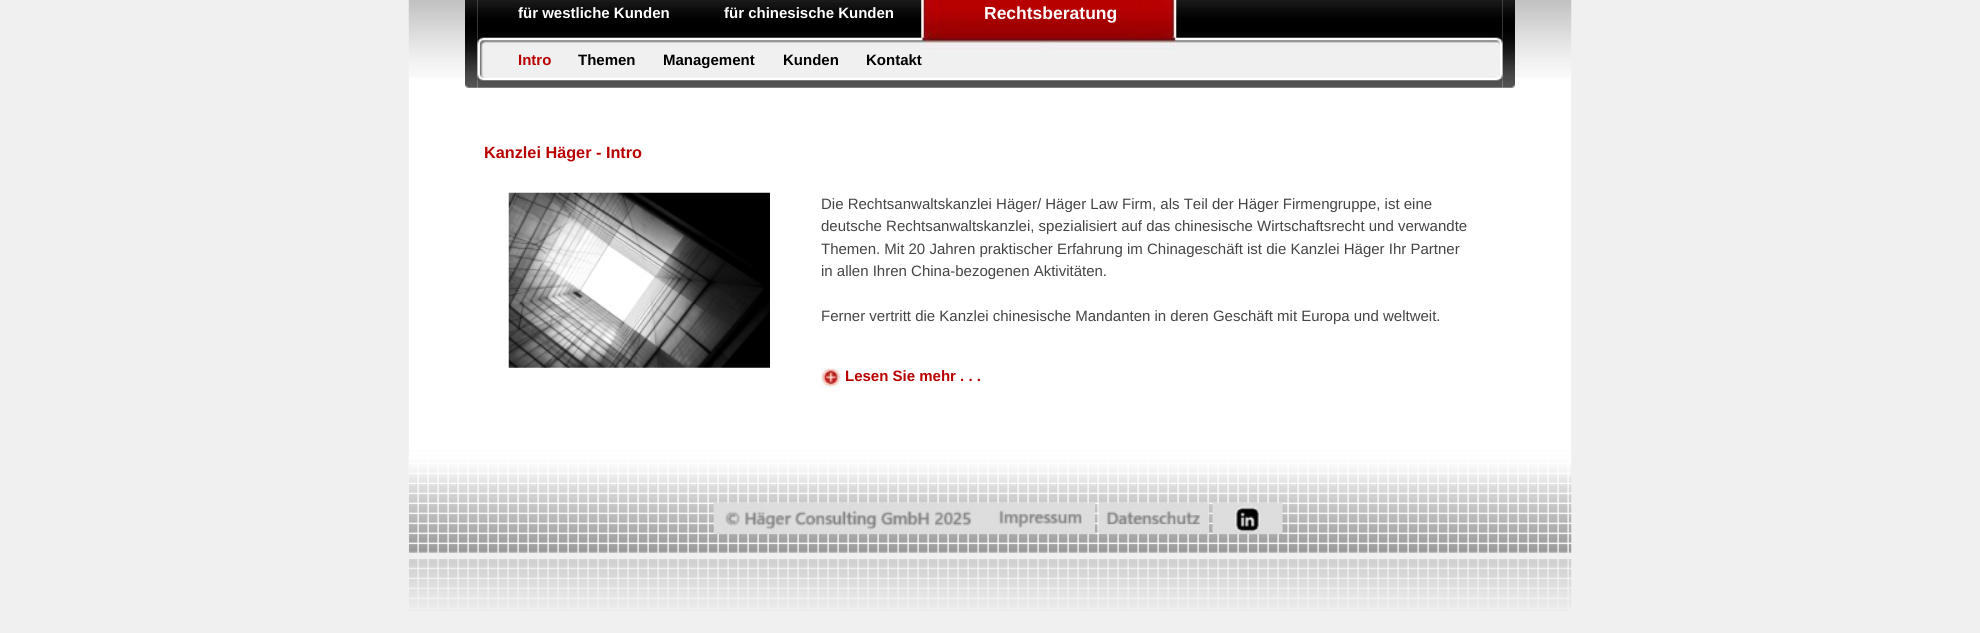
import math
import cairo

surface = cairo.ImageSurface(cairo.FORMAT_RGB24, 1980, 633)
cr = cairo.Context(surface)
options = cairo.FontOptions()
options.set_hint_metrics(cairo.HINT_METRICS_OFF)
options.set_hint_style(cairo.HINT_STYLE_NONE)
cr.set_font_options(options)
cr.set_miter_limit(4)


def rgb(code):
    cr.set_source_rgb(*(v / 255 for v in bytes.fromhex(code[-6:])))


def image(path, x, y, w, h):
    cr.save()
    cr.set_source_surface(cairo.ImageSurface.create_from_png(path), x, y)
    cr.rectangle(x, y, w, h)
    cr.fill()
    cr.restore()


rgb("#f0f0f0")
cr.paint()
rgb("#ffffff")
cr.rectangle(409, 78, 1162, 372)
cr.fill()
image("img/1.png", 408, 0, 1164, 78)
image("img/2.png", 465, 0, 13, 88)
image("img/3.png", 477, 0, 1026, 88)
image("img/6.png", 490, 37, 1000, 44)
image("img/4.png", 921, 0, 256, 50)
image("img/5.png", 477, 37, 13, 44)
image("img/8.png", 1502, 0, 13, 88)
image("img/7.png", 1490, 37, 13, 44)
image("img/9.png", 508, 192, 262, 176)
image("img/10.png", 821, 367, 20, 21)
image("img/11.png", 408, 450, 1164, 103)
image("img/12.png", 713, 502, 272, 32)
image("img/13.png", 985, 502, 110, 32)
image("img/14.png", 1098, 502, 111, 32)
image("img/15.png", 1212, 502, 71, 32)
image("img/16.png", 409, 559, 1163, 52)
cr.select_font_face("Liberation Sans", cairo.FONT_SLANT_NORMAL, cairo.FONT_WEIGHT_BOLD)
cr.set_font_size(15)
cr.move_to(518, 18)
cr.show_text("für westliche Kunden")
cr.move_to(724, 18)
cr.show_text("für chinesische Kunden")
cr.set_font_size(17.5)
cr.move_to(984, 19)
cr.show_text("Rechtsberatung")
cr.set_font_size(15)
rgb("#b90000")
cr.move_to(518, 65)
cr.show_text("Intro")
rgb("#000000")
for x, y, s in [
    (578, 65, "Themen"),
    (663, 65, "Management"),
    (783, 65, "Kunden"),
    (866, 65, "Kontakt"),
]:
    cr.move_to(x, y)
    cr.show_text(s)
cr.set_font_size(16.25)
rgb("#b90000")
cr.move_to(484, 158)
cr.show_text("Kanzlei Häger - Intro")
cr.select_font_face("Liberation Sans")
cr.set_font_size(15)
rgb("#444444")
for x, y, s in [
    (821, 209, "Die Rechtsanwaltskanzlei Häger/ Häger Law Firm, als Teil der Häger Firmengruppe, ist eine"),
    (821, 231, "deutsche Rechtsanwaltskanzlei, spezialisiert auf das chinesische Wirtschaftsrecht und verwandte"),
    (821, 254, "Themen. Mit 20 Jahren praktischer Erfahrung im Chinageschäft ist die Kanzlei Häger Ihr Partner"),
    (821, 276, "in allen Ihren China-bezogenen Aktivitäten."),
    (821, 321, "Ferner vertritt die Kanzlei chinesische Mandanten in deren Geschäft mit Europa und weltweit."),
]:
    cr.move_to(x, y)
    cr.show_text(s)
cr.select_font_face("Liberation Sans", cairo.FONT_SLANT_NORMAL, cairo.FONT_WEIGHT_BOLD)
rgb("#b90000")
cr.move_to(845, 381)
cr.show_text("Lesen Sie mehr . . .")
surface.write_to_png("page.png")
